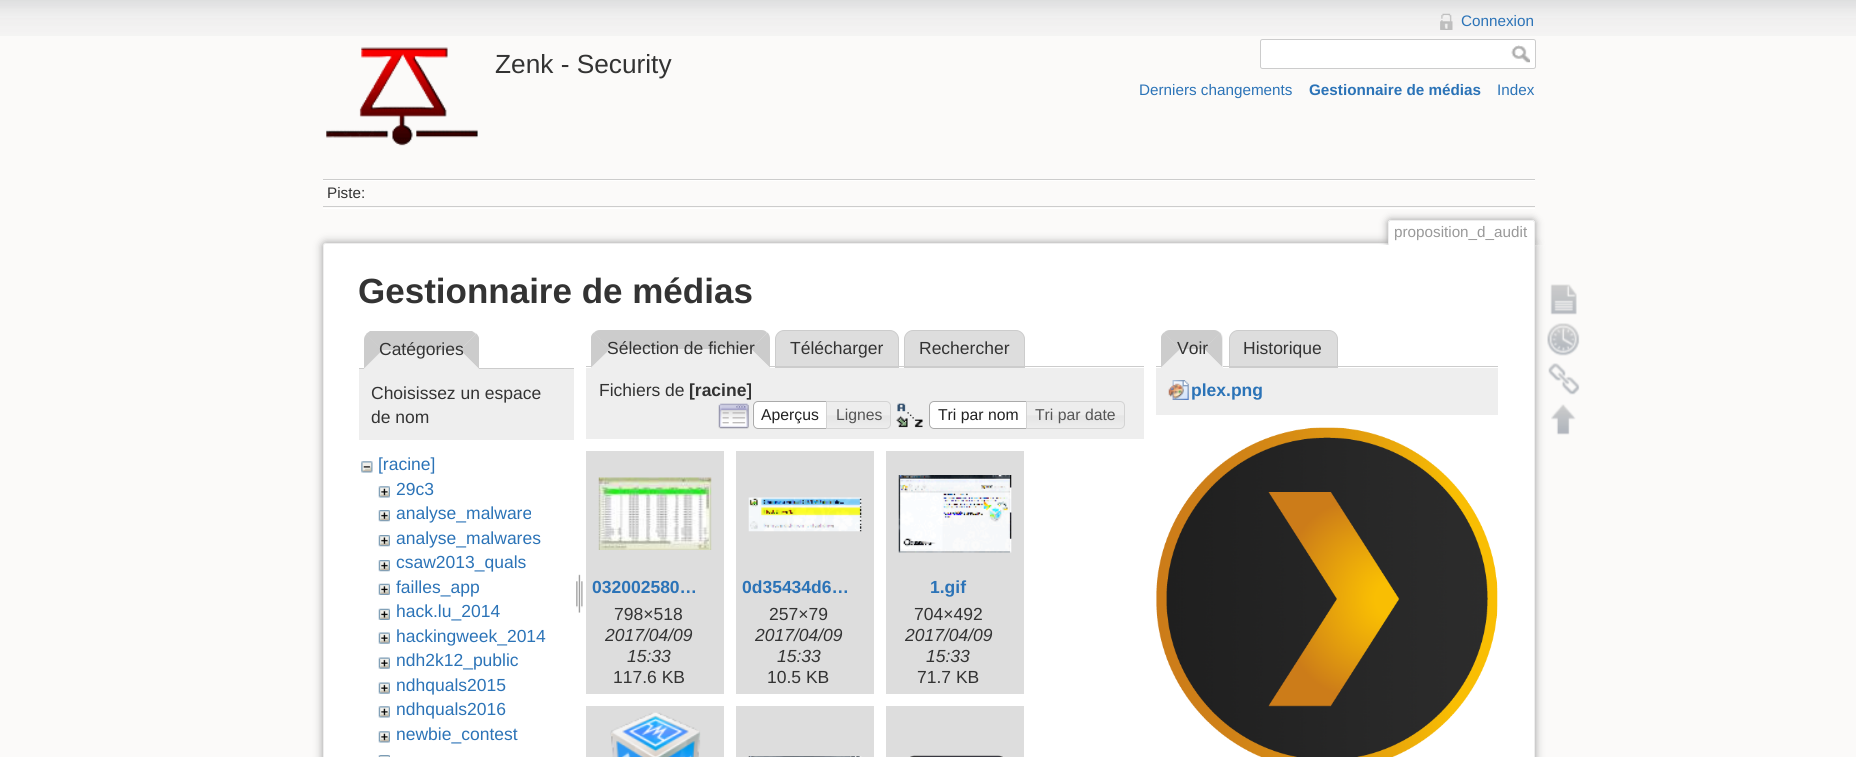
import math
import cairo

surface = cairo.ImageSurface(cairo.FORMAT_RGB24, 1856, 757)
cr = cairo.Context(surface)
options = cairo.FontOptions()
options.set_hint_metrics(cairo.HINT_METRICS_OFF)
options.set_hint_style(cairo.HINT_STYLE_NONE)
cr.set_font_options(options)
cr.set_miter_limit(4)


def rgb(code):
    cr.set_source_rgb(*(v / 255 for v in bytes.fromhex(code[-6:])))


def rrect(x, y, w, h, r):
    cr.new_sub_path()
    for i, (u, v) in enumerate([(x + w - r, y + h - r), (x + r, y + h - r), (x + r, y + r), (x + w - r, y + r)]):
        cr.arc(u, v, r, i * math.pi / 2, (i + 1) * math.pi / 2)
    cr.close_path()


def soft_shadow(x, y, w, h, r, blur, alpha):
    cr.push_group_with_content(cairo.CONTENT_ALPHA)
    cr.set_operator(cairo.OPERATOR_SOURCE)
    for i in range(15, -16, -2):
        e = blur * i / 6
        if min(w, h) + 2 * e > 0:
            cr.set_source_rgba(0, 0, 0, alpha * math.erfc((i - 1) / 8.5) / 2)
            rrect(x - e, y - e, w + 2 * e, h + 2 * e, max(0, min(r + e + blur * .6, min(w, h) / 2 + e)))
            cr.fill()
    cr.mask(cr.pop_group())


def image(path, x, y, w, h):
    cr.save()
    cr.set_source_surface(cairo.ImageSurface.create_from_png(path), x, y)
    cr.rectangle(x, y, w, h)
    cr.fill()
    cr.restore()


rgb("#fbfaf9")
cr.paint()
image("img/1.png", 0, 0, 1856, 36)
image("img/2.png", 326, 47, 152, 99)
image("img/3.png", 1440, 13, 13, 17)
rgb("#ffffff")
rrect(1260.5, 39.5, 275, 29, 2)
cr.fill_preserve()
rgb("#cccccc")
cr.set_line_width(1)
cr.stroke()
image("img/4.png", 1511, 45, 19, 18)
for x, y, w, h, color in [
    (323, 179, 1212, 1, "#cccccc"),
    (323, 208, 1212, 1, "#ffffff"),
    (323, 180, 1212, 1, "#ffffff"),
    (323, 206, 1212, 1, "#cccccc"),
]:
    rgb(color)
    cr.rectangle(x, y, w, h)
    cr.fill()
rgb("#999999")
soft_shadow(323, 243, 1212, 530, 2.5, 4.5, 1)
rgb("#ffffff")
rrect(323.5, 243.5, 1211, 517, 2)
cr.fill_preserve()
rgb("#eeeeee")
cr.stroke()
cr.save()
cr.rectangle(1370, 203, 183, 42)
cr.clip()
rgb("#999999")
soft_shadow(1388, 220, 147, 25, 2.5, 4, 1)
cr.restore()
rgb("#ffffff")
cr.new_path()
cr.move_to(1390, 221)
cr.line_to(1533, 221)
cr.curve_to(1533.5, 221, 1534, 221.5, 1534, 222)
cr.line_to(1534, 245)
cr.line_to(1389, 245)
cr.line_to(1389, 222)
cr.curve_to(1389, 221.5, 1389.5, 221, 1390, 221)
cr.close_path()
cr.fill()
for x, y, w, h, color in [
    (1389, 220, 145, 1, "#eeeeee"),
    (1534, 221, 1, 24, "#eeeeee"),
    (1388, 221, 1, 24, "#eeeeee"),
    (359, 368, 215, 1, "#cccccc"),
]:
    rgb(color)
    cr.rectangle(x, y, w, h)
    cr.fill()
rgb("#eeeeee")
cr.new_path()
cr.move_to(373, 331)
cr.line_to(470, 331)
cr.curve_to(475, 331, 479, 335, 479, 340)
cr.line_to(479, 369)
cr.line_to(364, 369)
cr.line_to(364, 340)
cr.curve_to(364, 335, 368, 331, 373, 331)
cr.close_path()
cr.fill()
rgb("#cccccc")
cr.new_path()
cr.move_to(472, 331)
cr.line_to(370, 331)
cr.line_to(366, 334)
cr.line_to(382, 350)
cr.line_to(460, 350)
cr.line_to(476, 334)
cr.close_path()
cr.fill()
cr.new_path()
cr.move_to(476.5, 333.5)
cr.line_to(460, 350)
cr.line_to(479, 369)
cr.line_to(479, 338)
cr.curve_to(478.5, 336, 477.5, 335, 476.5, 333.5)
cr.close_path()
cr.fill()
rgb("#eeeeee")
cr.new_path()
cr.move_to(479, 369)
cr.line_to(460, 350)
cr.line_to(382, 350)
cr.line_to(364, 369)
cr.close_path()
cr.fill()
rgb("#cccccc")
cr.new_path()
cr.move_to(364, 368.5)
cr.line_to(382.5, 350)
cr.line_to(366.5, 334)
cr.curve_to(365, 335.5, 364, 337.5, 364, 340)
cr.close_path()
cr.fill()
rgb("#eeeeee")
cr.rectangle(359, 369, 215, 71)
cr.fill()
image("img/5.png", 361, 461, 12, 12)
image("img/6.png", 378, 486, 12, 12)
image("img/7.png", 378, 510, 12, 12)
image("img/7.png", 378, 535, 12, 12)
image("img/7.png", 378, 560, 12, 12)
image("img/8.png", 378, 583, 12, 12)
image("img/9.png", 378, 608, 12, 12)
image("img/10.png", 378, 632, 12, 12)
image("img/10.png", 378, 657, 12, 12)
image("img/10.png", 378, 682, 12, 12)
image("img/6.png", 378, 706, 12, 12)
image("img/6.png", 378, 731, 12, 12)
image("img/11.png", 378, 755, 12, 2)
image("img/12.png", 576, 574, 7, 39)
rgb("#dddddd")
cr.new_path()
cr.move_to(784, 330.5)
cr.line_to(890, 330.5)
cr.curve_to(894.5, 330.5, 898.5, 334.5, 898.5, 339)
cr.line_to(898.5, 367.5)
cr.line_to(775.5, 367.5)
cr.line_to(775.5, 339)
cr.curve_to(775.5, 334.5, 779.5, 330.5, 784, 330.5)
cr.close_path()
cr.fill_preserve()
rgb("#cccccc")
cr.stroke()
rgb("#dddddd")
cr.new_path()
cr.move_to(913, 330.5)
cr.line_to(1016, 330.5)
cr.curve_to(1020.5, 330.5, 1024.5, 334.5, 1024.5, 339)
cr.line_to(1024.5, 367.5)
cr.line_to(904.5, 367.5)
cr.line_to(904.5, 339)
cr.curve_to(904.5, 334.5, 908.5, 330.5, 913, 330.5)
cr.close_path()
cr.fill_preserve()
rgb("#cccccc")
cr.stroke()
cr.rectangle(586, 366, 558, 1)
cr.fill()
rgb("#eeeeee")
cr.new_path()
cr.move_to(600, 330)
cr.line_to(761, 330)
cr.curve_to(766, 330, 770, 334, 770, 339)
cr.line_to(770, 368)
cr.line_to(591, 368)
cr.line_to(591, 339)
cr.curve_to(591, 334, 595, 330, 600, 330)
cr.close_path()
cr.fill()
rgb("#cccccc")
cr.new_path()
cr.move_to(600, 330)
cr.line_to(761, 330)
cr.curve_to(764, 330, 766, 331, 767, 333)
cr.line_to(751, 349)
cr.line_to(610, 349)
cr.line_to(594, 333)
cr.curve_to(595, 331, 598, 330, 600, 330)
cr.close_path()
cr.fill()
cr.new_path()
cr.move_to(767.5, 332.5)
cr.line_to(751, 349)
cr.line_to(770, 367.5)
cr.line_to(770, 339)
cr.curve_to(770, 336.5, 769, 334, 767.5, 332.5)
cr.close_path()
cr.fill()
rgb("#eeeeee")
cr.new_path()
cr.move_to(770, 368)
cr.line_to(751, 349)
cr.line_to(610, 349)
cr.line_to(591, 368)
cr.close_path()
cr.fill()
rgb("#cccccc")
cr.new_path()
cr.move_to(591, 367.5)
cr.line_to(610, 349)
cr.line_to(594, 332.5)
cr.curve_to(592.5, 333.5, 591.5, 335, 591, 337)
cr.close_path()
cr.fill()
rgb("#eeeeee")
cr.rectangle(586, 368, 558, 71)
cr.fill()
image("img/13.png", 718, 403, 31, 26)
rgb("#ffffff")
cr.new_path()
cr.move_to(758, 401)
cr.line_to(829, 401)
cr.line_to(829, 429)
cr.line_to(758, 429)
cr.curve_to(755, 429, 753, 427, 753, 424)
cr.line_to(753, 406)
cr.curve_to(753, 403, 755, 401, 758, 401)
cr.close_path()
cr.fill()
image("img/14.png", 752, 402, 3, 26)
cr.new_path()
cr.move_to(758, 401.5)
cr.line_to(828.5, 401.5)
cr.line_to(828.5, 428.5)
cr.line_to(758, 428.5)
cr.curve_to(755.5, 428.5, 753.5, 426.5, 753.5, 424)
cr.line_to(753.5, 406)
cr.curve_to(753.5, 403.5, 755.5, 401.5, 758, 401.5)
cr.close_path()
rgb("#aaaaaa")
cr.stroke()
image("img/15.png", 827, 402, 64, 26)
cr.new_path()
cr.move_to(826.5, 401.5)
cr.line_to(886, 401.5)
cr.curve_to(888.5, 401.5, 890.5, 403.5, 890.5, 406)
cr.line_to(890.5, 424)
cr.curve_to(890.5, 426.5, 888.5, 428.5, 886, 428.5)
cr.line_to(826.5, 428.5)
cr.close_path()
rgb("#d3d3d3")
cr.stroke()
image("img/16.png", 896, 403, 27, 25)
rgb("#ffffff")
cr.new_path()
cr.move_to(934, 401)
cr.line_to(1028, 401)
cr.line_to(1028, 429)
cr.line_to(934, 429)
cr.curve_to(931, 429, 929, 427, 929, 424)
cr.line_to(929, 406)
cr.curve_to(929, 403, 931, 401, 934, 401)
cr.close_path()
cr.fill()
image("img/17.png", 929, 403, 2, 25)
cr.new_path()
cr.move_to(934, 401.5)
cr.line_to(1027.5, 401.5)
cr.line_to(1027.5, 428.5)
cr.line_to(934, 428.5)
cr.curve_to(931.5, 428.5, 929.5, 426.5, 929.5, 424)
cr.line_to(929.5, 406)
cr.curve_to(929.5, 403.5, 931.5, 401.5, 934, 401.5)
cr.close_path()
rgb("#aaaaaa")
cr.stroke()
image("img/18.png", 1027, 402, 98, 26)
cr.new_path()
cr.move_to(1026.5, 401.5)
cr.line_to(1120, 401.5)
cr.curve_to(1122.5, 401.5, 1124.5, 403.5, 1124.5, 406)
cr.line_to(1124.5, 424)
cr.curve_to(1124.5, 426.5, 1122.5, 428.5, 1120, 428.5)
cr.line_to(1026.5, 428.5)
cr.close_path()
rgb("#d3d3d3")
cr.stroke()
rgb("#dddddd")
cr.rectangle(586, 451, 138, 243)
cr.fill()
image("img/19.png", 598, 477, 114, 73)
cr.rectangle(736, 451, 138, 243)
cr.fill()
image("img/20.png", 748, 497, 114, 35)
cr.rectangle(886, 451, 138, 243)
cr.fill()
image("img/21.png", 898, 475, 114, 78)
cr.rectangle(586, 706, 138, 51)
cr.fill()
image("img/22.png", 610, 712, 91, 45)
cr.rectangle(736, 706, 138, 51)
cr.fill()
image("img/23.png", 748, 756, 114, 1)
cr.rectangle(886, 706, 138, 51)
cr.fill()
image("img/24.png", 910, 755, 93, 2)
cr.new_path()
cr.move_to(1238, 330.5)
cr.line_to(1329, 330.5)
cr.curve_to(1333.5, 330.5, 1337.5, 334.5, 1337.5, 339)
cr.line_to(1337.5, 367.5)
cr.line_to(1229.5, 367.5)
cr.line_to(1229.5, 339)
cr.curve_to(1229.5, 334.5, 1233.5, 330.5, 1238, 330.5)
cr.close_path()
cr.fill_preserve()
rgb("#cccccc")
cr.stroke()
cr.rectangle(1156, 366, 342, 1)
cr.fill()
rgb("#eeeeee")
cr.new_path()
cr.move_to(1170, 330)
cr.line_to(1214, 330)
cr.curve_to(1219, 330, 1223, 334, 1223, 339)
cr.line_to(1223, 368)
cr.line_to(1161, 368)
cr.line_to(1161, 339)
cr.curve_to(1161, 334, 1165, 330, 1170, 330)
cr.close_path()
cr.fill()
rgb("#cccccc")
cr.new_path()
cr.move_to(1170, 330)
cr.line_to(1214, 330)
cr.curve_to(1216, 330, 1218, 331, 1220, 333)
cr.line_to(1204, 349)
cr.line_to(1180, 349)
cr.line_to(1164, 333)
cr.curve_to(1165, 331, 1168, 330, 1170, 330)
cr.close_path()
cr.fill()
cr.new_path()
cr.move_to(1220, 332.5)
cr.line_to(1204, 349)
cr.line_to(1222, 367)
cr.line_to(1222, 339)
cr.curve_to(1222, 336.5, 1221, 334, 1220, 332.5)
cr.close_path()
cr.fill()
rgb("#eeeeee")
cr.new_path()
cr.move_to(1222, 367)
cr.line_to(1204, 349)
cr.line_to(1180, 349)
cr.line_to(1161, 368)
cr.line_to(1222, 368)
cr.close_path()
cr.fill()
rgb("#cccccc")
cr.new_path()
cr.move_to(1161, 367.5)
cr.line_to(1180, 349)
cr.line_to(1164, 332.5)
cr.curve_to(1162.5, 333.5, 1161.5, 335, 1161, 337)
cr.close_path()
cr.fill()
rgb("#eeeeee")
cr.rectangle(1156, 368, 342, 47)
cr.fill()
image("img/25.png", 1168, 380, 21, 20)
image("img/26.png", 1156, 427, 342, 330)
image("img/27.png", 1550, 284, 27, 31)
image("img/28.png", 1547, 323, 33, 33)
image("img/29.png", 1548, 363, 32, 32)
image("img/30.png", 1551, 404, 25, 31)
cr.select_font_face("Liberation Sans")
cr.set_font_size(26.25)
rgb("#333333")
cr.move_to(495, 73)
cr.show_text("Zenk - Security")
cr.set_font_size(15.25)
rgb("#2b73b7")
cr.move_to(1461, 26)
cr.show_text("Connexion")
cr.move_to(1139, 95)
cr.show_text("Derniers changements")
cr.select_font_face("Liberation Sans", cairo.FONT_SLANT_NORMAL, cairo.FONT_WEIGHT_BOLD)
cr.move_to(1309, 95)
cr.show_text("Gestionnaire de médias")
cr.select_font_face("Liberation Sans")
cr.move_to(1497, 95)
cr.show_text("Index")
rgb("#333333")
cr.move_to(327, 198)
cr.show_text("Piste:")
rgb("#999999")
cr.move_to(1394, 237)
cr.show_text("proposition_d_audit")
cr.select_font_face("Liberation Sans", cairo.FONT_SLANT_NORMAL, cairo.FONT_WEIGHT_BOLD)
cr.set_font_size(35)
rgb("#333333")
cr.move_to(358, 303)
cr.show_text("Gestionnaire de médias")
cr.select_font_face("Liberation Sans")
cr.set_font_size(17.5)
for x, y, s in [
    (379, 355, "Catégories"),
    (371, 399, "Choisissez un espace"),
    (371, 423, "de nom"),
]:
    cr.move_to(x, y)
    cr.show_text(s)
rgb("#2b73b7")
for x, y, s in [
    (378, 470, "[racine]"),
    (396, 495, "29c3"),
    (396, 519, "analyse_malware"),
    (396, 544, "analyse_malwares"),
    (396, 568, "csaw2013_quals"),
    (396, 593, "failles_app"),
    (396, 617, "hack.lu_2014"),
    (396, 642, "hackingweek_2014"),
    (396, 666, "ndh2k12_public"),
    (396, 691, "ndhquals2015"),
    (396, 715, "ndhquals2016"),
    (396, 740, "newbie_contest"),
]:
    cr.move_to(x, y)
    cr.show_text(s)
rgb("#333333")
for x, y, s in [
    (607, 354, "Sélection de fichier"),
    (790, 354, "Télécharger"),
    (919, 354, "Rechercher"),
    (599, 396, "Fichiers de"),
]:
    cr.move_to(x, y)
    cr.show_text(s)
cr.select_font_face("Liberation Sans", cairo.FONT_SLANT_NORMAL, cairo.FONT_WEIGHT_BOLD)
cr.move_to(689, 396)
cr.show_text("[racine]")
cr.select_font_face("Liberation Sans")
cr.set_font_size(15.75)
rgb("#212121")
cr.move_to(761, 420)
cr.show_text("Aperçus")
rgb("#555555")
cr.move_to(836, 420)
cr.show_text("Lignes")
rgb("#212121")
cr.move_to(938, 420)
cr.show_text("Tri par nom")
rgb("#555555")
cr.move_to(1035, 420)
cr.show_text("Tri par date")
cr.select_font_face("Liberation Sans", cairo.FONT_SLANT_NORMAL, cairo.FONT_WEIGHT_BOLD)
cr.set_font_size(17.5)
rgb("#2b73b7")
cr.move_to(592, 593)
cr.show_text("032002580…")
cr.select_font_face("Liberation Sans")
rgb("#333333")
cr.move_to(614, 620)
cr.show_text("798×518")
cr.select_font_face("Liberation Sans", cairo.FONT_SLANT_ITALIC)
cr.move_to(605, 641)
cr.show_text("2017/04/09")
cr.move_to(627, 662)
cr.show_text("15:33")
cr.select_font_face("Liberation Sans")
cr.move_to(613, 683)
cr.show_text("117.6 KB")
cr.select_font_face("Liberation Sans", cairo.FONT_SLANT_NORMAL, cairo.FONT_WEIGHT_BOLD)
rgb("#2b73b7")
cr.move_to(742, 593)
cr.show_text("0d35434d6…")
cr.select_font_face("Liberation Sans")
rgb("#333333")
cr.move_to(769, 620)
cr.show_text("257×79")
cr.select_font_face("Liberation Sans", cairo.FONT_SLANT_ITALIC)
cr.move_to(755, 641)
cr.show_text("2017/04/09")
cr.move_to(777, 662)
cr.show_text("15:33")
cr.select_font_face("Liberation Sans")
cr.move_to(767, 683)
cr.show_text("10.5 KB")
cr.select_font_face("Liberation Sans", cairo.FONT_SLANT_NORMAL, cairo.FONT_WEIGHT_BOLD)
rgb("#2b73b7")
cr.move_to(930, 593)
cr.show_text("1.gif")
cr.select_font_face("Liberation Sans")
rgb("#333333")
cr.move_to(914, 620)
cr.show_text("704×492")
cr.select_font_face("Liberation Sans", cairo.FONT_SLANT_ITALIC)
cr.move_to(905, 641)
cr.show_text("2017/04/09")
cr.move_to(926, 662)
cr.show_text("15:33")
cr.select_font_face("Liberation Sans")
for x, y, s in [
    (917, 683, "71.7 KB"),
    (1177, 354, "Voir"),
    (1243, 354, "Historique"),
]:
    cr.move_to(x, y)
    cr.show_text(s)
cr.select_font_face("Liberation Sans", cairo.FONT_SLANT_NORMAL, cairo.FONT_WEIGHT_BOLD)
rgb("#2b73b7")
cr.move_to(1191, 396)
cr.show_text("plex.png")
surface.write_to_png("page.png")
